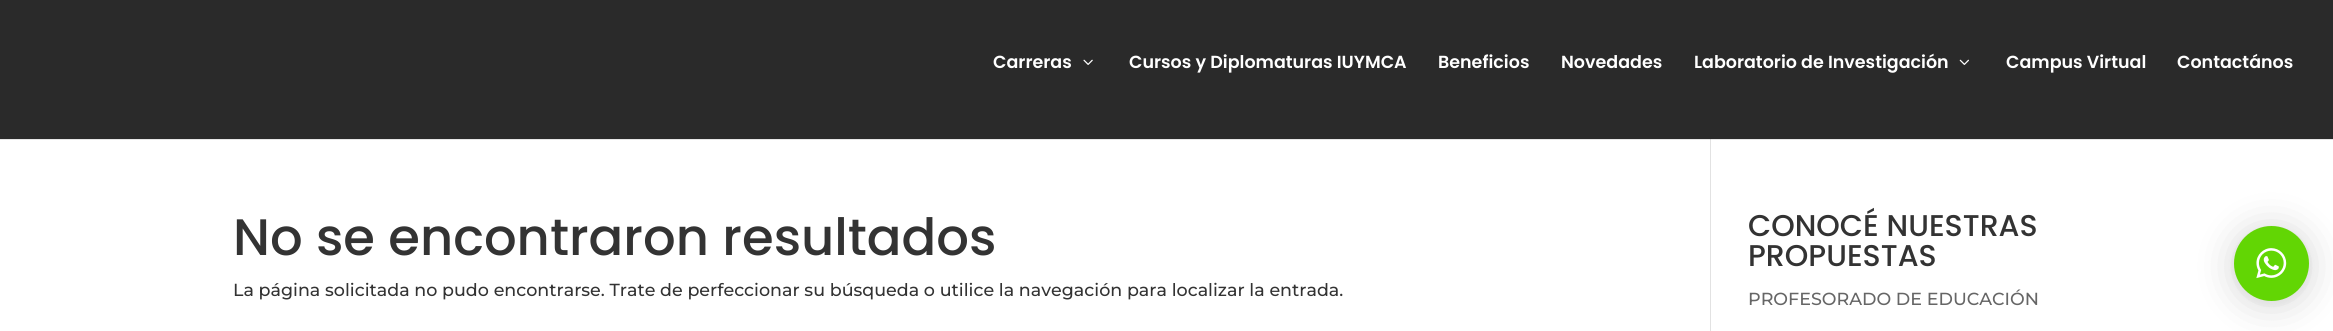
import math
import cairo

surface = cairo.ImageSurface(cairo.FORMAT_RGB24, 2333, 331)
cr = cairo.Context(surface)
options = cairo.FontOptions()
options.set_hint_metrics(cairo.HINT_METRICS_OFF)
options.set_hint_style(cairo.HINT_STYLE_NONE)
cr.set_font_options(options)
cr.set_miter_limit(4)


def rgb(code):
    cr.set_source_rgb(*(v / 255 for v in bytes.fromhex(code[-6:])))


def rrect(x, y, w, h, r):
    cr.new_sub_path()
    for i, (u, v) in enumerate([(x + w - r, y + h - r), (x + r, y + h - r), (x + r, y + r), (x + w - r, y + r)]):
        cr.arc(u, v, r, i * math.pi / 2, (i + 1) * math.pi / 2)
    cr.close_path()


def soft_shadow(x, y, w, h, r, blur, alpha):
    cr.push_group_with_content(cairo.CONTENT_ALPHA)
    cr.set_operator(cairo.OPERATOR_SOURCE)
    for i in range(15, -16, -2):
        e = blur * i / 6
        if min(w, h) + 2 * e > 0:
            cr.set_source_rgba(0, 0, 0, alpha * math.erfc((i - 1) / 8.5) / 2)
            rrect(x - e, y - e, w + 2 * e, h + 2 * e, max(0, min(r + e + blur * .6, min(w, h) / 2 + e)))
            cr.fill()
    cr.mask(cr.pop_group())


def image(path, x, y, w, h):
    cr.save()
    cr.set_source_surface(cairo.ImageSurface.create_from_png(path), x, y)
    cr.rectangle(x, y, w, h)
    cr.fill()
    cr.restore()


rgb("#ffffff")
cr.paint()
rgb("#e2e2e2")
cr.rectangle(1710, 139, 1, 192)
cr.fill()
cr.set_source_rgba(0, 0, 0, 0.1)
cr.new_path()
cr.move_to(0, 139)
cr.line_to(0, 140)
cr.line_to(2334, 140)
cr.line_to(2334, -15)
cr.line_to(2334, 139)
cr.close_path()
cr.fill()
rgb("#2a2a2a")
cr.rectangle(0, 0, 2333, 139)
cr.fill()
image("img/1.png", 1083, 59, 10, 6)
image("img/2.png", 1959, 59, 10, 6)
rgb("#000000")
soft_shadow(2234, 229, 75, 75, 37.5, 20, 0.16)
soft_shadow(2234, 228, 75, 75, 37.5, 4, 0.06)
rgb("#62d604")
cr.arc(2271.5, 263.5, 37.5, 0, 2 * math.pi)
cr.fill()
image("img/3.png", 2256, 248, 31, 31)
cr.select_font_face("Poppins SemiBold")
cr.set_font_size(17.5)
rgb("#ffffff")
for x, y, s in [
    (993, 68, "Carreras"),
    (1129, 68, "Cursos y Diplomaturas IUYMCA"),
    (1438, 68, "Beneficios"),
    (1561, 68, "Novedades"),
    (1694, 68, "Laboratorio de Investigación"),
    (2006, 68, "Campus Virtual"),
    (2177, 68, "Contactános"),
]:
    cr.move_to(x, y)
    cr.show_text(s)
cr.select_font_face("Poppins Medium")
cr.set_font_size(51.25)
rgb("#333333")
cr.move_to(233, 255)
cr.show_text("No se encontraron resultados")
cr.select_font_face("Montserrat Thin")
cr.set_font_size(17.5)
cr.move_to(233, 296)
cr.show_text("La página solicitada no pudo encontrarse. Trate de perfeccionar su búsqueda o utilice la navegación para localizar la entrada.")
cr.select_font_face("Poppins Medium")
cr.set_font_size(30)
cr.move_to(1748, 236)
cr.show_text("CONOCÉ NUESTRAS")
cr.move_to(1748, 266)
cr.show_text("PROPUESTAS")
cr.select_font_face("Montserrat Thin")
cr.set_font_size(17.5)
rgb("#666666")
cr.move_to(1748, 305)
cr.show_text("PROFESORADO DE EDUCACIÓN")
surface.write_to_png("page.png")
